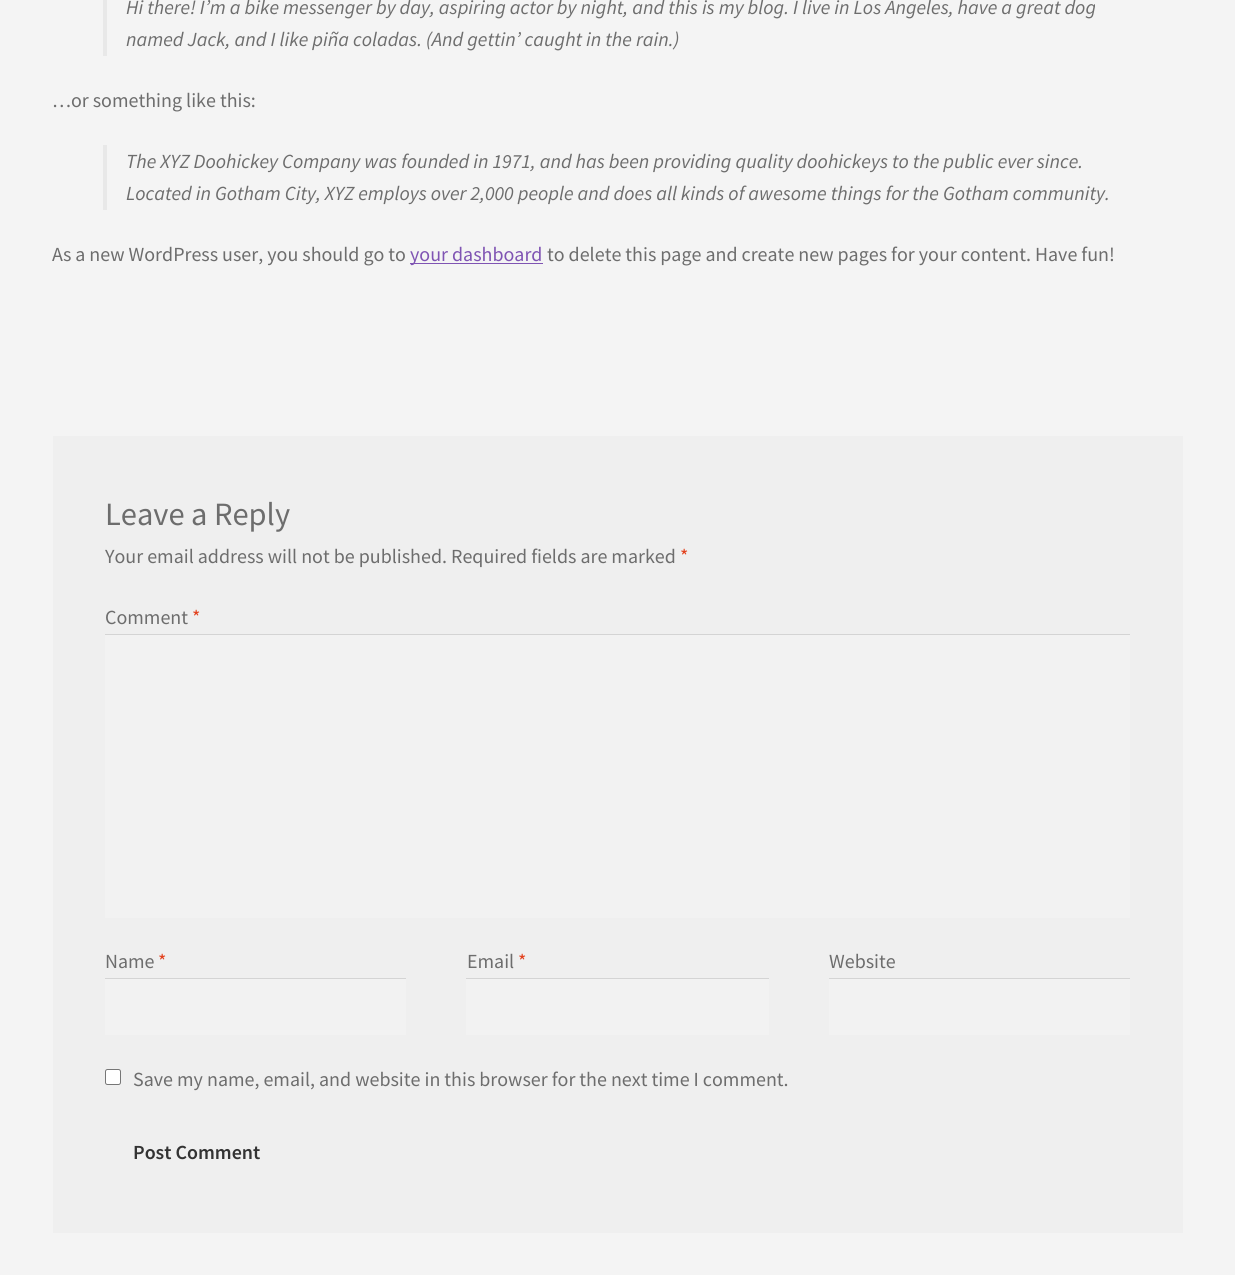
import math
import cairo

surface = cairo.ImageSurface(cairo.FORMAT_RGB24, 1235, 1275)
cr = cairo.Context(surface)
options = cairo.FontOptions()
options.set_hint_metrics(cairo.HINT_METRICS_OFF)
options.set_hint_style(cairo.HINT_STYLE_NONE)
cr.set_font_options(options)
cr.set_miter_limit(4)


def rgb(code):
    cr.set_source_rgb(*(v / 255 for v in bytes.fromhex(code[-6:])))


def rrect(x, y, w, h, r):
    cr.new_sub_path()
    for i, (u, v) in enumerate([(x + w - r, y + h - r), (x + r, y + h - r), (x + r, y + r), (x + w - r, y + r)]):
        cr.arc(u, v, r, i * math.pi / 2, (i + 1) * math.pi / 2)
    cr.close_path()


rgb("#f4f4f4")
cr.paint()
for x, y, w, h, color in [
    (103, 0, 4, 56, "#e8e8e8"),
    (103, 145, 4, 65, "#e8e8e8"),
    (410, 263, 133, 1, "#7f54b3"),
    (53, 436, 1130, 797, "#efefef"),
    (105, 635, 1025, 283, "#f2f2f2"),
    (105, 634, 1025, 1, "#d4d4d4"),
    (105, 979, 301, 56, "#f2f2f2"),
    (105, 978, 301, 1, "#d4d4d4"),
    (466, 979, 303, 56, "#f2f2f2"),
    (466, 978, 303, 1, "#d4d4d4"),
    (829, 979, 301, 56, "#f2f2f2"),
    (829, 978, 301, 1, "#d4d4d4"),
]:
    rgb(color)
    cr.rectangle(x, y, w, h)
    cr.fill()
rgb("#ffffff")
rrect(105.5, 1069.5, 15, 15, 2)
cr.fill_preserve()
rgb("#767676")
cr.set_line_width(1)
cr.stroke()
cr.select_font_face("Source Sans Pro", cairo.FONT_SLANT_ITALIC)
cr.set_font_size(20)
rgb("#6d6d6d")
cr.move_to(126, 14)
cr.show_text("Hi there! I’m a bike messenger by day, aspiring actor by night, and this is my blog. I live in Los Angeles, have a great dog")
cr.move_to(126, 46)
cr.show_text("named Jack, and I like piña coladas. (And gettin’ caught in the rain.)")
cr.select_font_face("Source Sans Pro")
cr.move_to(52, 107)
cr.show_text("…or something like this:")
cr.select_font_face("Source Sans Pro", cairo.FONT_SLANT_ITALIC)
cr.move_to(126, 168)
cr.show_text("The XYZ Doohickey Company was founded in 1971, and has been providing quality doohickeys to the public ever since.")
cr.move_to(126, 200)
cr.show_text("Located in Gotham City, XYZ employs over 2,000 people and does all kinds of awesome things for the Gotham community.")
cr.select_font_face("Source Sans Pro")
cr.move_to(52, 261)
cr.show_text("As a new WordPress user, you should go to")
rgb("#7f54b3")
cr.move_to(410, 261)
cr.show_text("your dashboard")
rgb("#6d6d6d")
cr.move_to(547, 261)
cr.show_text("to delete this page and create new pages for your content. Have fun!")
cr.set_font_size(32.5)
cr.move_to(105, 525)
cr.show_text("Leave a Reply")
cr.set_font_size(20)
cr.move_to(105, 563)
cr.show_text("Your email address will not be published. Required fields are marked")
rgb("#e2401c")
cr.move_to(680, 563)
cr.show_text("*")
rgb("#6d6d6d")
cr.move_to(105, 624)
cr.show_text("Comment")
rgb("#e2401c")
cr.move_to(192, 624)
cr.show_text("*")
rgb("#6d6d6d")
cr.move_to(105, 968)
cr.show_text("Name")
rgb("#e2401c")
cr.move_to(158, 968)
cr.show_text("*")
rgb("#6d6d6d")
cr.move_to(467, 968)
cr.show_text("Email")
rgb("#e2401c")
cr.move_to(518, 968)
cr.show_text("*")
rgb("#6d6d6d")
cr.move_to(829, 968)
cr.show_text("Website")
cr.move_to(133, 1086)
cr.show_text("Save my name, email, and website in this browser for the next time I comment.")
cr.select_font_face("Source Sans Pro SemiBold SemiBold")
rgb("#333333")
cr.move_to(133, 1159)
cr.show_text("Post Comment")
surface.write_to_png("page.png")
